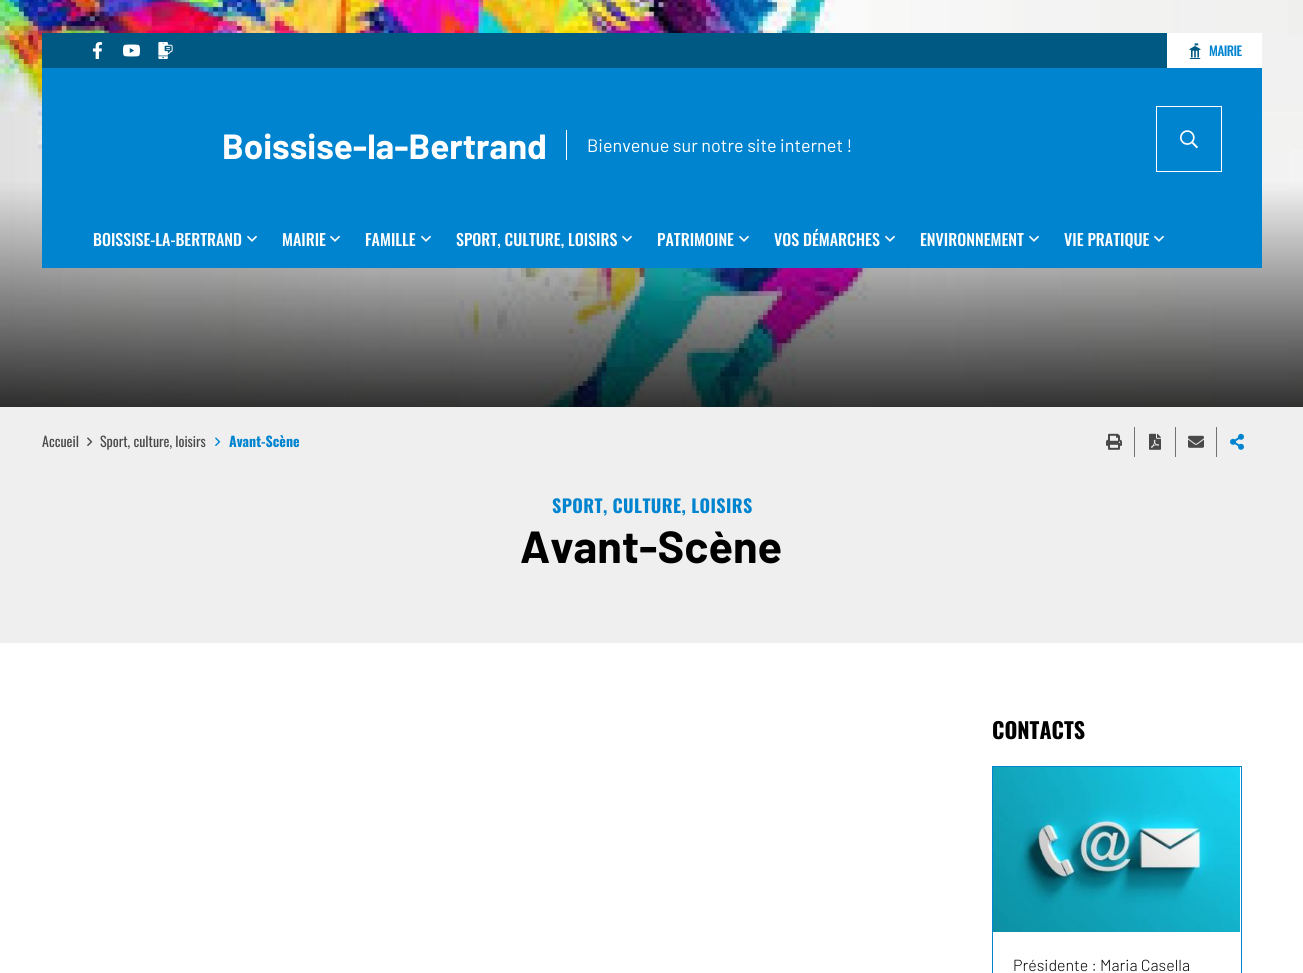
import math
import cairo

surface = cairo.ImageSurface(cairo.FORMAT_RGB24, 1303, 973)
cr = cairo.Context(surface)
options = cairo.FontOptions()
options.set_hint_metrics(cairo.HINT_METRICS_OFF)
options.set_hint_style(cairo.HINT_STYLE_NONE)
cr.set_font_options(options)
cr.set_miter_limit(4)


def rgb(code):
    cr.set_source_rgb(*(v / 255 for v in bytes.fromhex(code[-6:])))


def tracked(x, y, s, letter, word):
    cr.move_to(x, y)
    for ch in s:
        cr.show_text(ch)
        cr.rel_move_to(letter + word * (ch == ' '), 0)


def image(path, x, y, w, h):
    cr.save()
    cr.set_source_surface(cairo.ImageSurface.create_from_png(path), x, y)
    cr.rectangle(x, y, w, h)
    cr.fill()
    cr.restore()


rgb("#ffffff")
cr.paint()
image("img/1.png", 0, 0, 1303, 407)
rgb("#005982")
cr.rectangle(42, 33, 1125, 35)
cr.fill()
image("img/2.png", 92, 42, 11, 17)
image("img/3.png", 123, 44, 17, 13)
image("img/4.png", 158, 42, 15, 17)
rgb("#ffffff")
cr.rectangle(1167, 33, 95, 35)
cr.fill()
image("img/5.png", 1189, 43, 12, 16)
rgb("#0084cf")
cr.rectangle(42, 68, 1220, 200)
cr.fill()
rgb("#ffffff")
cr.rectangle(566, 130, 1, 30)
cr.fill()
cr.rectangle(1156.5, 106.5, 65, 65)
cr.set_line_width(1)
cr.stroke()
image("img/6.png", 1180, 130, 18, 19)
image("img/7.png", 247, 235, 10, 7)
image("img/7.png", 330, 235, 10, 7)
image("img/7.png", 421, 235, 10, 7)
image("img/7.png", 622, 235, 10, 7)
image("img/7.png", 739, 235, 10, 7)
image("img/7.png", 885, 235, 10, 7)
image("img/7.png", 1029, 235, 10, 7)
image("img/7.png", 1154, 235, 10, 7)
rgb("#efefef")
cr.rectangle(0, 407, 1303, 236)
cr.fill()
image("img/8.png", 87, 437, 6, 10)
image("img/9.png", 215, 437, 6, 10)
image("img/10.png", 1106, 433, 16, 17)
rgb("#727272")
cr.rectangle(1134, 427, 1, 30)
cr.fill()
image("img/11.png", 1149, 433, 12, 17)
cr.rectangle(1175, 427, 1, 30)
cr.fill()
image("img/12.png", 1188, 435, 16, 13)
cr.rectangle(1216, 427, 1, 30)
cr.fill()
image("img/13.png", 1230, 433, 14, 17)
cr.rectangle(992.5, 766.5, 249, 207)
rgb("#0084cf")
cr.stroke()
image("img/14.png", 993, 767, 247, 165)
cr.select_font_face("Oswald Medium")
cr.set_font_size(13)
tracked(1209, 56, "MAIRIE", -0.5, 0)
cr.select_font_face("Barlow", cairo.FONT_SLANT_NORMAL, cairo.FONT_WEIGHT_BOLD)
cr.set_font_size(35)
rgb("#ffffff")
cr.move_to(222, 159)
cr.show_text("Boissise-la-Bertrand")
cr.select_font_face("Barlow")
cr.set_font_size(18)
cr.move_to(587, 152)
cr.show_text("Bienvenue sur notre site internet !")
cr.select_font_face("Oswald Medium")
cr.set_font_size(16)
for x, y, s in [
    (93, 246, "BOISSISE-LA-BERTRAND"),
    (282, 246, "MAIRIE"),
    (365, 246, "FAMILLE"),
    (456, 246, "SPORT, CULTURE, LOISIRS"),
    (657, 246, "PATRIMOINE"),
    (774, 246, "VOS DÉMARCHES"),
    (920, 246, "ENVIRONNEMENT"),
    (1064, 246, "VIE PRATIQUE"),
]:
    cr.move_to(x, y)
    cr.show_text(s)
cr.select_font_face("Oswald")
cr.set_font_size(14)
rgb("#494949")
cr.move_to(42, 447)
cr.show_text("Accueil")
cr.move_to(100, 447)
cr.show_text("Sport, culture, loisirs")
cr.select_font_face("Oswald", cairo.FONT_SLANT_NORMAL, cairo.FONT_WEIGHT_BOLD)
rgb("#0084cf")
cr.move_to(229, 447)
cr.show_text("Avant-Scène")
cr.set_font_size(18)
tracked(552, 513, "SPORT, CULTURE, LOISIRS", 0.4, 0)
cr.select_font_face("Barlow", cairo.FONT_SLANT_NORMAL, cairo.FONT_WEIGHT_BOLD)
cr.set_font_size(45)
rgb("#000000")
cr.move_to(520, 563)
cr.show_text("Avant-Scène")
cr.select_font_face("Oswald", cairo.FONT_SLANT_NORMAL, cairo.FONT_WEIGHT_BOLD)
cr.set_font_size(22)
cr.move_to(992, 739)
cr.show_text("CONTACTS")
cr.select_font_face("Barlow Light")
cr.set_font_size(16)
cr.move_to(1013, 971)
cr.show_text("Présidente : Maria Casella")
surface.write_to_png("page.png")
